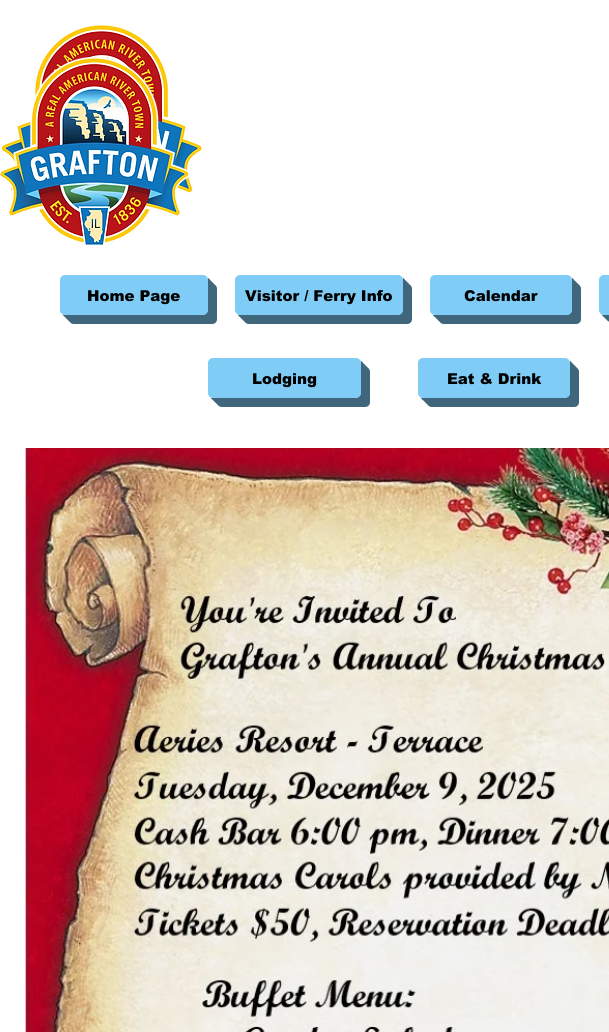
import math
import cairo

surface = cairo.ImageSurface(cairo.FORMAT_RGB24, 609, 1032)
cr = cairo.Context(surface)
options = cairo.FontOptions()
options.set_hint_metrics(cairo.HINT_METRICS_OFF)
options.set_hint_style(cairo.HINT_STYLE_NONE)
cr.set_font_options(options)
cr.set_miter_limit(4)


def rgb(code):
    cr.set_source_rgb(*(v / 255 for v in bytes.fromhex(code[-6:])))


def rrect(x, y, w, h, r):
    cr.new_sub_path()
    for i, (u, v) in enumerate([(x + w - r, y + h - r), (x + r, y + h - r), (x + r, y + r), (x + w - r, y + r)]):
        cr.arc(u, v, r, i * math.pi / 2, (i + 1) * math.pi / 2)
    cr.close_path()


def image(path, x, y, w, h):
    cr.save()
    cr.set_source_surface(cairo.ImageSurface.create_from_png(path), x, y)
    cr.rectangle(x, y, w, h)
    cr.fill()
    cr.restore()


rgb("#ffffff")
cr.paint()
image("img/3.png", 0, 24, 202, 171)
image("img/1.png", 0, 57, 189, 188)
image("img/2.png", 25, 448, 584, 584)
rgb("#40667c")
cr.new_path()
cr.move_to(69, 315)
cr.line_to(69, 319)
cr.curve_to(69, 322, 71, 324, 74, 324)
cr.line_to(212, 324)
cr.curve_to(215, 324, 217, 322, 217, 319)
cr.line_to(217, 289)
cr.curve_to(217, 286, 215, 284, 212, 284)
cr.line_to(208, 284)
cr.line_to(208, 310)
cr.curve_to(208, 313, 206, 315, 203, 315)
cr.close_path()
cr.fill()
cr.new_path()
cr.move_to(67, 315)
cr.line_to(67, 317)
cr.curve_to(67, 320, 69, 322, 72, 322)
cr.line_to(210, 322)
cr.curve_to(213, 322, 215, 320, 215, 317)
cr.line_to(215, 287)
cr.curve_to(215, 284, 213, 282, 210, 282)
cr.line_to(208, 282)
cr.line_to(208, 310)
cr.curve_to(208, 313, 206, 315, 203, 315)
cr.close_path()
cr.fill()
cr.new_path()
cr.move_to(65, 315)
cr.curve_to(65, 318, 67, 320, 70, 320)
cr.line_to(208, 320)
cr.curve_to(211, 320, 213, 318, 213, 315)
cr.line_to(213, 285)
cr.curve_to(213, 282, 211, 280, 208, 280)
cr.line_to(208, 310)
cr.curve_to(208, 313, 206, 315, 203, 315)
cr.close_path()
cr.fill()
cr.new_path()
cr.move_to(63, 315)
cr.curve_to(64, 317, 66, 318, 68, 318)
cr.line_to(206, 318)
cr.curve_to(209, 318, 211, 316, 211, 313)
cr.line_to(211, 283)
cr.curve_to(211, 281, 210, 279, 208, 278)
cr.line_to(208, 300)
cr.curve_to(208, 304, 210, 315, 203, 315)
cr.close_path()
cr.fill()
cr.new_path()
cr.move_to(62, 314)
cr.curve_to(63, 315, 64, 316, 66, 316)
cr.line_to(204, 316)
cr.curve_to(207, 316, 209, 314, 209, 311)
cr.line_to(209, 281)
cr.curve_to(209, 279, 208, 278, 207, 277)
cr.curve_to(208, 278, 208, 279, 208, 280)
cr.line_to(208, 310)
cr.curve_to(208, 313, 206, 315, 203, 315)
cr.line_to(65, 315)
cr.curve_to(64, 315, 63, 315, 62, 314)
cr.close_path()
cr.fill()
rgb("#7fccf7")
rrect(60, 275, 148, 40, 5)
cr.fill()
rgb("#40667c")
cr.new_path()
cr.move_to(244, 315)
cr.line_to(244, 319)
cr.curve_to(244, 322, 246, 324, 249, 324)
cr.line_to(407, 324)
cr.curve_to(410, 324, 412, 322, 412, 319)
cr.line_to(412, 289)
cr.curve_to(412, 286, 410, 284, 407, 284)
cr.line_to(403, 284)
cr.line_to(403, 310)
cr.curve_to(403, 313, 401, 315, 398, 315)
cr.close_path()
cr.fill()
cr.new_path()
cr.move_to(242, 315)
cr.line_to(242, 317)
cr.curve_to(242, 320, 244, 322, 247, 322)
cr.line_to(405, 322)
cr.curve_to(408, 322, 410, 320, 410, 317)
cr.line_to(410, 287)
cr.curve_to(410, 284, 408, 282, 405, 282)
cr.line_to(403, 282)
cr.line_to(403, 310)
cr.curve_to(403, 313, 401, 315, 398, 315)
cr.close_path()
cr.fill()
cr.new_path()
cr.move_to(240, 315)
cr.curve_to(240, 318, 242, 320, 245, 320)
cr.line_to(403, 320)
cr.curve_to(406, 320, 408, 318, 408, 315)
cr.line_to(408, 285)
cr.curve_to(408, 282, 406, 280, 403, 280)
cr.line_to(403, 310)
cr.curve_to(403, 313, 401, 315, 398, 315)
cr.close_path()
cr.fill()
cr.new_path()
cr.move_to(238, 315)
cr.curve_to(239, 317, 241, 318, 243, 318)
cr.line_to(401, 318)
cr.curve_to(404, 318, 406, 316, 406, 313)
cr.line_to(406, 283)
cr.curve_to(406, 281, 405, 279, 403, 278)
cr.line_to(403, 300)
cr.curve_to(403, 304, 405, 315, 398, 315)
cr.close_path()
cr.fill()
cr.new_path()
cr.move_to(237, 314)
cr.curve_to(238, 315, 239, 316, 241, 316)
cr.line_to(399, 316)
cr.curve_to(402, 316, 404, 314, 404, 311)
cr.line_to(404, 281)
cr.curve_to(404, 279, 403, 278, 402, 277)
cr.curve_to(403, 278, 403, 279, 403, 280)
cr.line_to(403, 310)
cr.curve_to(403, 313, 401, 315, 398, 315)
cr.line_to(240, 315)
cr.curve_to(239, 315, 238, 315, 237, 314)
cr.close_path()
cr.fill()
rgb("#7fccf7")
rrect(235, 275, 168, 40, 5)
cr.fill()
rgb("#40667c")
cr.new_path()
cr.move_to(439, 315)
cr.line_to(439, 319)
cr.curve_to(439, 322, 441, 324, 444, 324)
cr.line_to(576, 324)
cr.curve_to(579, 324, 581, 322, 581, 319)
cr.line_to(581, 289)
cr.curve_to(581, 286, 579, 284, 576, 284)
cr.line_to(572, 284)
cr.line_to(572, 310)
cr.curve_to(572, 313, 570, 315, 567, 315)
cr.close_path()
cr.fill()
cr.new_path()
cr.move_to(437, 315)
cr.line_to(437, 317)
cr.curve_to(437, 320, 439, 322, 442, 322)
cr.line_to(574, 322)
cr.curve_to(577, 322, 579, 320, 579, 317)
cr.line_to(579, 287)
cr.curve_to(579, 284, 577, 282, 574, 282)
cr.line_to(572, 282)
cr.line_to(572, 310)
cr.curve_to(572, 313, 570, 315, 567, 315)
cr.close_path()
cr.fill()
cr.new_path()
cr.move_to(435, 315)
cr.curve_to(435, 318, 437, 320, 440, 320)
cr.line_to(572, 320)
cr.curve_to(575, 320, 577, 318, 577, 315)
cr.line_to(577, 285)
cr.curve_to(577, 282, 575, 280, 572, 280)
cr.line_to(572, 310)
cr.curve_to(572, 313, 570, 315, 567, 315)
cr.close_path()
cr.fill()
cr.new_path()
cr.move_to(433, 315)
cr.curve_to(434, 317, 436, 318, 438, 318)
cr.line_to(570, 318)
cr.curve_to(573, 318, 575, 316, 575, 313)
cr.line_to(575, 283)
cr.curve_to(575, 281, 574, 279, 572, 278)
cr.line_to(572, 311)
cr.curve_to(570, 319, 552, 315, 545, 315)
cr.close_path()
cr.fill()
cr.new_path()
cr.move_to(432, 314)
cr.curve_to(433, 315, 434, 316, 436, 316)
cr.line_to(568, 316)
cr.curve_to(571, 316, 573, 314, 573, 311)
cr.line_to(573, 281)
cr.curve_to(573, 279, 572, 278, 571, 277)
cr.curve_to(572, 278, 572, 279, 572, 280)
cr.line_to(572, 310)
cr.curve_to(572, 313, 570, 315, 567, 315)
cr.line_to(435, 315)
cr.curve_to(434, 315, 433, 315, 432, 314)
cr.close_path()
cr.fill()
rgb("#7fccf7")
rrect(430, 275, 142, 40, 5)
cr.fill()
rgb("#40667c")
cr.new_path()
cr.move_to(606, 315)
cr.line_to(606, 317)
cr.curve_to(606, 320, 608, 322, 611, 322)
cr.line_to(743, 322)
cr.curve_to(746, 322, 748, 320, 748, 317)
cr.line_to(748, 287)
cr.curve_to(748, 284, 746, 282, 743, 282)
cr.line_to(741, 282)
cr.line_to(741, 310)
cr.curve_to(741, 313, 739, 315, 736, 315)
cr.close_path()
cr.fill()
cr.new_path()
cr.move_to(604, 315)
cr.curve_to(604, 318, 606, 320, 609, 320)
cr.line_to(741, 320)
cr.curve_to(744, 320, 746, 318, 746, 315)
cr.line_to(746, 285)
cr.curve_to(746, 282, 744, 280, 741, 280)
cr.line_to(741, 310)
cr.curve_to(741, 313, 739, 315, 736, 315)
cr.close_path()
cr.fill()
cr.new_path()
cr.move_to(602, 315)
cr.curve_to(603, 317, 605, 318, 607, 318)
cr.line_to(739, 318)
cr.curve_to(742, 318, 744, 316, 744, 313)
cr.line_to(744, 283)
cr.curve_to(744, 281, 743, 279, 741, 278)
cr.line_to(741, 311)
cr.curve_to(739, 319, 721, 315, 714, 315)
cr.close_path()
cr.fill()
cr.new_path()
cr.move_to(601, 314)
cr.curve_to(602, 315, 603, 316, 605, 316)
cr.line_to(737, 316)
cr.curve_to(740, 316, 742, 314, 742, 311)
cr.line_to(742, 281)
cr.curve_to(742, 279, 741, 278, 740, 277)
cr.curve_to(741, 278, 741, 279, 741, 280)
cr.line_to(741, 310)
cr.curve_to(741, 313, 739, 315, 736, 315)
cr.line_to(604, 315)
cr.curve_to(603, 315, 602, 315, 601, 314)
cr.close_path()
cr.fill()
rgb("#7fccf7")
rrect(599, 275, 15, 40, 5)
cr.fill()
rgb("#40667c")
cr.new_path()
cr.move_to(217, 398)
cr.line_to(217, 402)
cr.curve_to(217, 405, 219, 407, 222, 407)
cr.line_to(365, 407)
cr.curve_to(368, 407, 370, 405, 370, 402)
cr.line_to(370, 372)
cr.curve_to(370, 369, 368, 367, 365, 367)
cr.line_to(361, 367)
cr.line_to(361, 393)
cr.curve_to(361, 396, 359, 398, 356, 398)
cr.close_path()
cr.fill()
cr.new_path()
cr.move_to(215, 398)
cr.line_to(215, 400)
cr.curve_to(215, 403, 217, 405, 220, 405)
cr.line_to(363, 405)
cr.curve_to(366, 405, 368, 403, 368, 400)
cr.line_to(368, 370)
cr.curve_to(368, 367, 366, 365, 363, 365)
cr.line_to(361, 365)
cr.line_to(361, 393)
cr.curve_to(361, 396, 359, 398, 356, 398)
cr.close_path()
cr.fill()
cr.new_path()
cr.move_to(213, 398)
cr.curve_to(213, 401, 215, 403, 218, 403)
cr.line_to(361, 403)
cr.curve_to(364, 403, 366, 401, 366, 398)
cr.line_to(366, 368)
cr.curve_to(366, 365, 364, 363, 361, 363)
cr.line_to(361, 393)
cr.curve_to(361, 396, 359, 398, 356, 398)
cr.close_path()
cr.fill()
cr.new_path()
cr.move_to(211, 398)
cr.curve_to(212, 400, 214, 401, 216, 401)
cr.line_to(359, 401)
cr.curve_to(362, 401, 364, 399, 364, 396)
cr.line_to(364, 366)
cr.curve_to(364, 364, 363, 362, 361, 361)
cr.line_to(361, 383)
cr.curve_to(361, 387, 363, 398, 356, 398)
cr.close_path()
cr.fill()
cr.new_path()
cr.move_to(210, 397)
cr.curve_to(211, 398, 212, 399, 214, 399)
cr.line_to(357, 399)
cr.curve_to(360, 399, 362, 397, 362, 394)
cr.line_to(362, 364)
cr.curve_to(362, 362, 361, 361, 360, 360)
cr.curve_to(361, 361, 361, 362, 361, 363)
cr.line_to(361, 393)
cr.curve_to(361, 396, 359, 398, 356, 398)
cr.line_to(213, 398)
cr.curve_to(212, 398, 211, 398, 210, 397)
cr.close_path()
cr.fill()
rgb("#7fccf7")
rrect(208, 358, 153, 40, 5)
cr.fill()
rgb("#40667c")
cr.new_path()
cr.move_to(427, 398)
cr.line_to(427, 402)
cr.curve_to(427, 405, 429, 407, 432, 407)
cr.line_to(574, 407)
cr.curve_to(577, 407, 579, 405, 579, 402)
cr.line_to(579, 372)
cr.curve_to(579, 369, 577, 367, 574, 367)
cr.line_to(570, 367)
cr.line_to(570, 393)
cr.curve_to(570, 396, 568, 398, 565, 398)
cr.close_path()
cr.fill()
cr.new_path()
cr.move_to(425, 398)
cr.line_to(425, 400)
cr.curve_to(425, 403, 427, 405, 430, 405)
cr.line_to(572, 405)
cr.curve_to(575, 405, 577, 403, 577, 400)
cr.line_to(577, 370)
cr.curve_to(577, 367, 575, 365, 572, 365)
cr.line_to(570, 365)
cr.line_to(570, 393)
cr.curve_to(570, 396, 568, 398, 565, 398)
cr.close_path()
cr.fill()
cr.new_path()
cr.move_to(423, 398)
cr.curve_to(423, 401, 425, 403, 428, 403)
cr.line_to(570, 403)
cr.curve_to(573, 403, 575, 401, 575, 398)
cr.line_to(575, 368)
cr.curve_to(575, 365, 573, 363, 570, 363)
cr.line_to(570, 393)
cr.curve_to(570, 396, 568, 398, 565, 398)
cr.close_path()
cr.fill()
cr.new_path()
cr.move_to(421, 398)
cr.curve_to(422, 400, 424, 401, 426, 401)
cr.line_to(568, 401)
cr.curve_to(571, 401, 573, 399, 573, 396)
cr.line_to(573, 366)
cr.curve_to(573, 364, 572, 362, 570, 361)
cr.line_to(570, 383)
cr.curve_to(570, 387, 572, 398, 565, 398)
cr.close_path()
cr.fill()
cr.new_path()
cr.move_to(420, 397)
cr.curve_to(421, 398, 422, 399, 424, 399)
cr.line_to(566, 399)
cr.curve_to(569, 399, 571, 397, 571, 394)
cr.line_to(571, 364)
cr.curve_to(571, 362, 570, 361, 569, 360)
cr.curve_to(570, 361, 570, 362, 570, 363)
cr.line_to(570, 393)
cr.curve_to(570, 396, 568, 398, 565, 398)
cr.line_to(423, 398)
cr.curve_to(422, 398, 421, 398, 420, 397)
cr.close_path()
cr.fill()
rgb("#7fccf7")
rrect(418, 358, 152, 40, 5)
cr.fill()
cr.select_font_face("arial Black")
cr.set_font_size(15)
rgb("#000000")
for x, y, s in [
    (87, 301, "Home Page"),
    (245, 301, "Visitor / Ferry Info"),
    (464, 301, "Calendar"),
    (252, 384, "Lodging"),
    (447, 384, "Eat & Drink"),
]:
    cr.move_to(x, y)
    cr.show_text(s)
surface.write_to_png("page.png")
